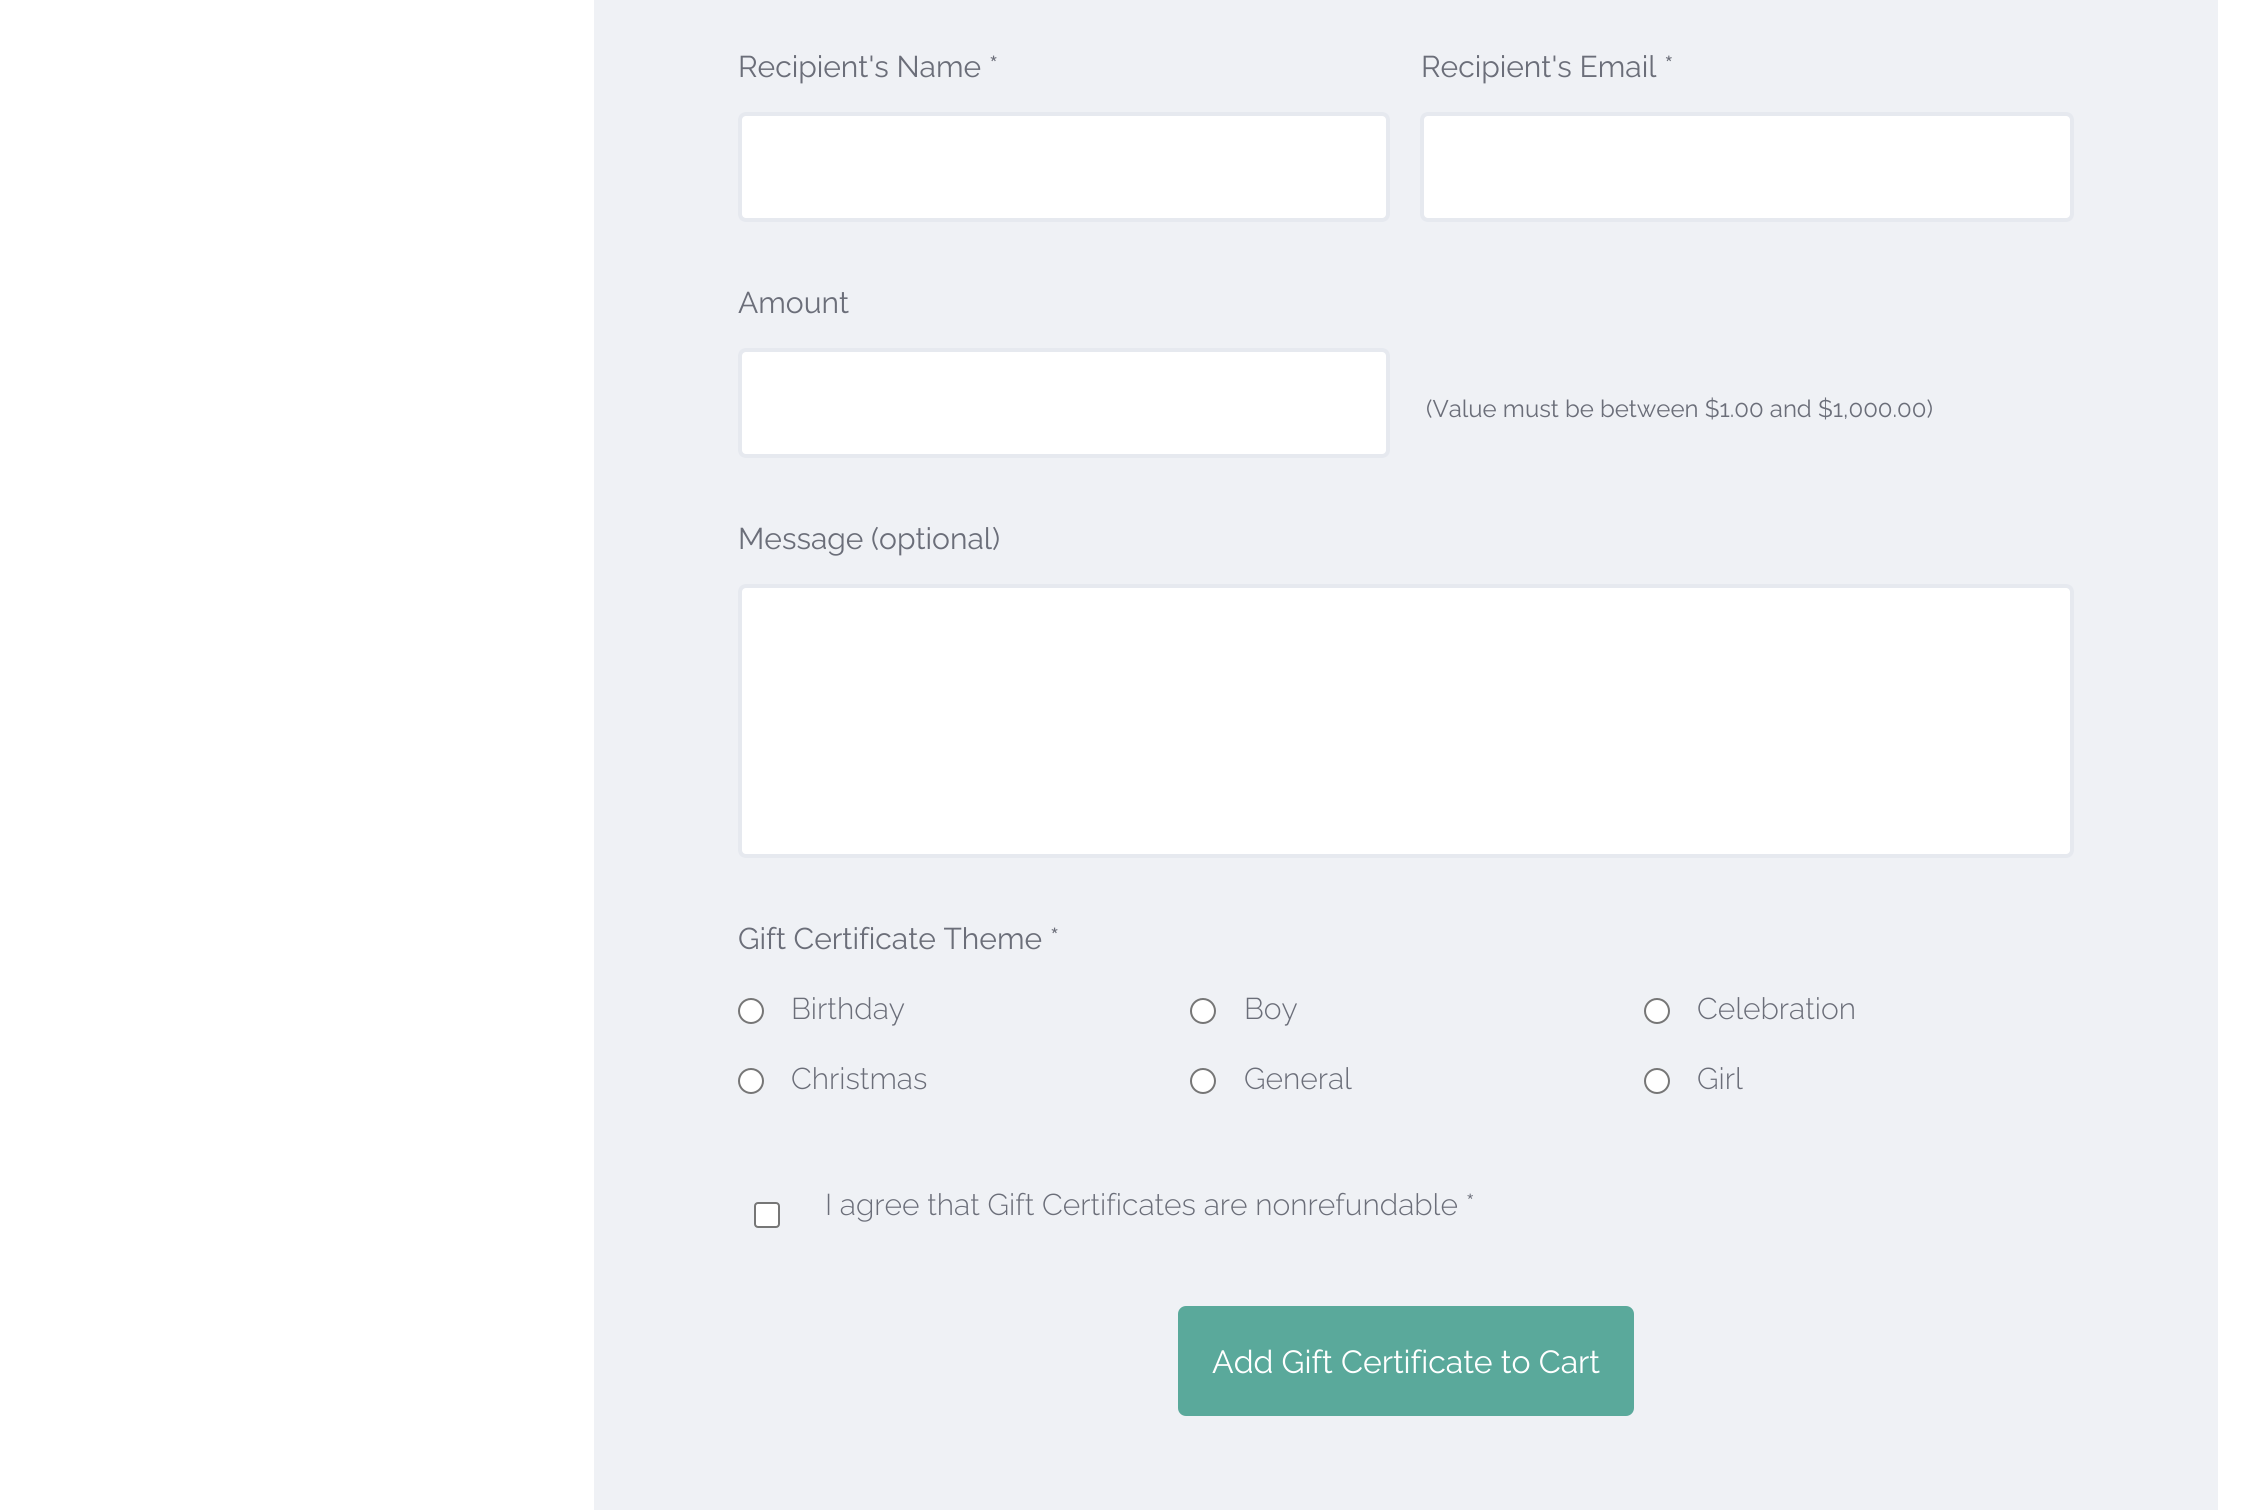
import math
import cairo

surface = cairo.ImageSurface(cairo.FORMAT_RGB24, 2258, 1510)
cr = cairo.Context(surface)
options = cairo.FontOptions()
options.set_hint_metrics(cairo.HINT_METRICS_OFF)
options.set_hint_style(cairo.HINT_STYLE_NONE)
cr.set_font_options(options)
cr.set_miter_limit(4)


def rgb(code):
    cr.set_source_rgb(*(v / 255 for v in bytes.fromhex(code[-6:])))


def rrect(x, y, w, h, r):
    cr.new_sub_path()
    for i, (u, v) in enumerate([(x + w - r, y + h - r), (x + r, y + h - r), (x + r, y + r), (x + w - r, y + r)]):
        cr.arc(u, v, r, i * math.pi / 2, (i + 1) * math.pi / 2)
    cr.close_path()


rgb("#ffffff")
cr.paint()
rgb("#eff1f5")
cr.rectangle(594, 0, 1624, 1510)
cr.fill()
rgb("#ffffff")
rrect(740, 114, 648, 106, 6)
cr.fill_preserve()
rgb("#e6e9ef")
cr.set_line_width(4)
cr.stroke()
rgb("#ffffff")
rrect(1422, 114, 650, 106, 6)
cr.fill_preserve()
rgb("#e6e9ef")
cr.stroke()
rgb("#ffffff")
rrect(740, 350, 648, 106, 6)
cr.fill_preserve()
rgb("#e6e9ef")
cr.stroke()
rgb("#ffffff")
rrect(740, 586, 1332, 270, 6)
cr.fill_preserve()
rgb("#e6e9ef")
cr.stroke()
rgb("#ffffff")
cr.arc(751, 1011, 12, 0, 2 * math.pi)
cr.fill_preserve()
rgb("#767676")
cr.set_line_width(2)
cr.stroke()
rgb("#ffffff")
cr.arc(1203, 1011, 12, 0, 2 * math.pi)
cr.fill_preserve()
rgb("#767676")
cr.stroke()
rgb("#ffffff")
cr.arc(1657, 1011, 12, 0, 2 * math.pi)
cr.fill_preserve()
rgb("#767676")
cr.stroke()
rgb("#ffffff")
cr.arc(751, 1081, 12, 0, 2 * math.pi)
cr.fill_preserve()
rgb("#767676")
cr.stroke()
rgb("#ffffff")
cr.arc(1203, 1081, 12, 0, 2 * math.pi)
cr.fill_preserve()
rgb("#767676")
cr.stroke()
rgb("#ffffff")
cr.arc(1657, 1081, 12, 0, 2 * math.pi)
cr.fill_preserve()
rgb("#767676")
cr.stroke()
rgb("#ffffff")
rrect(755, 1203, 24, 24, 3)
cr.fill_preserve()
rgb("#767676")
cr.stroke()
rgb("#5aa99b")
rrect(1178, 1306, 456, 110, 8)
cr.fill()
cr.select_font_face("Raleway")
cr.set_font_size(30)
rgb("#6b6e79")
for x, y, s in [
    (738, 77, "Recipient's Name *"),
    (1421, 77, "Recipient's Email *"),
    (738, 313, "Amount"),
]:
    cr.move_to(x, y)
    cr.show_text(s)
cr.set_font_size(24)
cr.move_to(1426, 417)
cr.show_text("(Value must be between $1.00 and $1,000.00)")
cr.set_font_size(30)
cr.move_to(738, 549)
cr.show_text("Message (optional)")
cr.move_to(738, 949)
cr.show_text("Gift Certificate Theme *")
cr.select_font_face("Raleway Light")
for x, y, s in [
    (791, 1019, "Birthday"),
    (1244, 1019, "Boy"),
    (1697, 1019, "Celebration"),
    (791, 1089, "Christmas"),
    (1244, 1089, "General"),
    (1697, 1089, "Girl"),
    (825, 1215, "I agree that Gift Certificates are nonrefundable *"),
]:
    cr.move_to(x, y)
    cr.show_text(s)
cr.select_font_face("Raleway")
cr.set_font_size(32)
rgb("#ffffff")
cr.move_to(1212, 1373)
cr.show_text("Add Gift Certificate to Cart")
surface.write_to_png("page.png")
